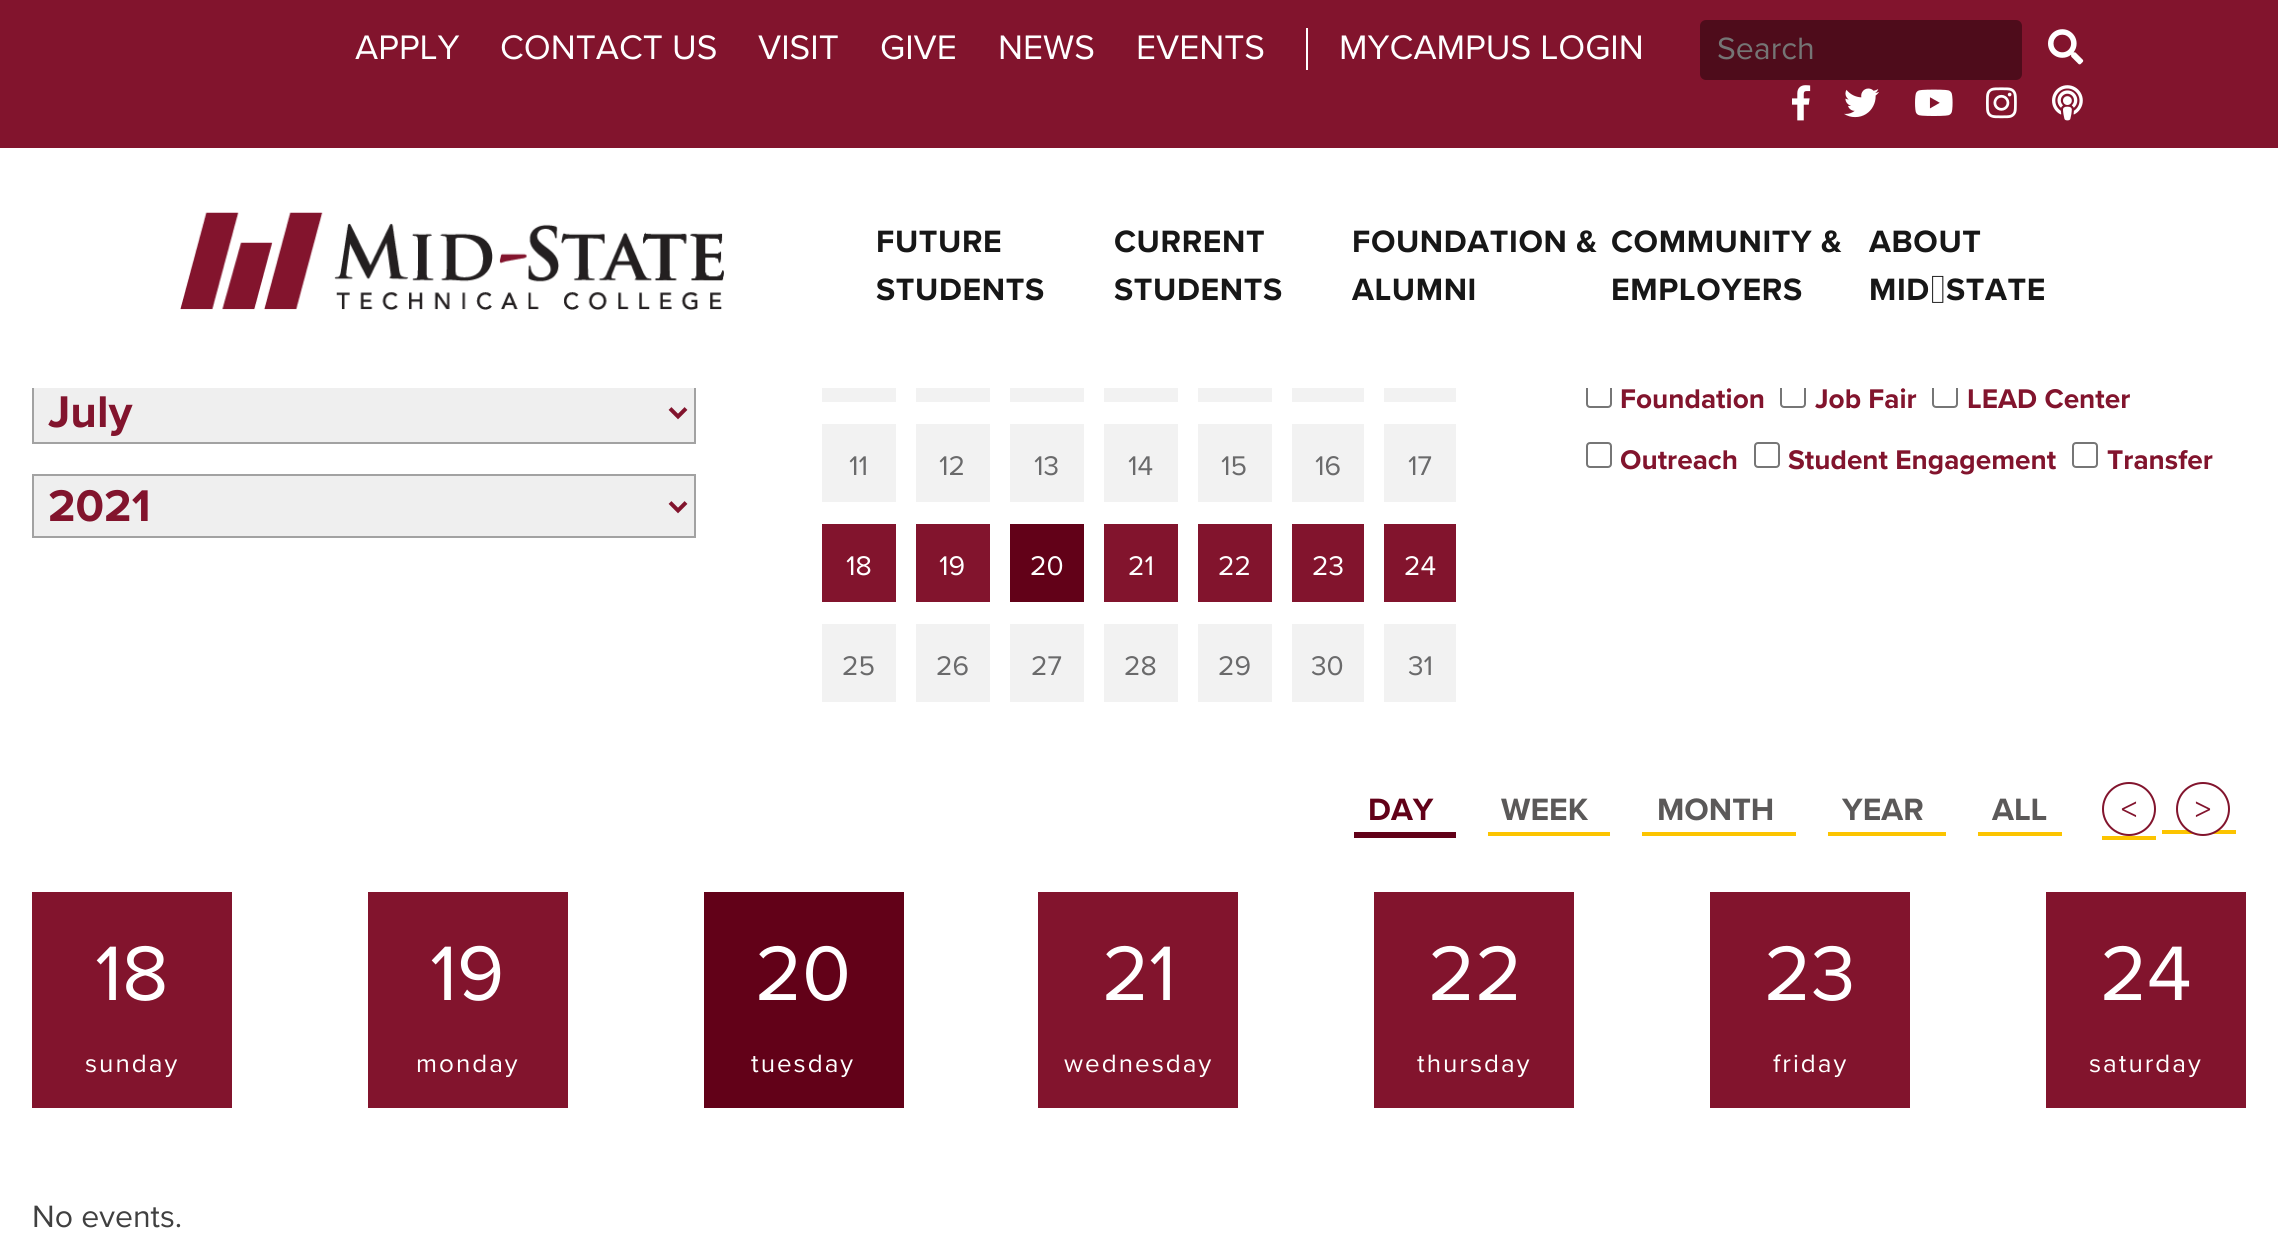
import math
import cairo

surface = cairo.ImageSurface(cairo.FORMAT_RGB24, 2278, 1234)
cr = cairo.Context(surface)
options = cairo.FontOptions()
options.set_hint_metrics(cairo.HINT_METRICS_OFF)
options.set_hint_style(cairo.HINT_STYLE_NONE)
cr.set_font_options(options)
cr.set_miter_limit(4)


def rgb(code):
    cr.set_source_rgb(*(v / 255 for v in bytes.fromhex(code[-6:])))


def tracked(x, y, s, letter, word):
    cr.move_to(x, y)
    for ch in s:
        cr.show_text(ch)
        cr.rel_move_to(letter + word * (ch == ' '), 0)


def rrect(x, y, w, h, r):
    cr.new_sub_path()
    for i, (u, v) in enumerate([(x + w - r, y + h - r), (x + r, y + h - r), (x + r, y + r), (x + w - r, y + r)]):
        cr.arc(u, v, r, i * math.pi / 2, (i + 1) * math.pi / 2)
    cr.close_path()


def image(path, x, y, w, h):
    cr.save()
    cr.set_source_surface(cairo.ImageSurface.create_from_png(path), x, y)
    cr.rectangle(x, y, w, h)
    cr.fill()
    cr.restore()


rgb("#ffffff")
cr.paint()
rgb("#82142d")
cr.rectangle(0, 0, 2278, 148)
cr.fill()
rgb("#ffffff")
cr.rectangle(1306, 28, 2, 42)
cr.fill()
rgb("#4e0c1b")
rrect(1700, 20, 322, 60, 6)
cr.fill()
image("img/1.png", 2048, 29, 36, 36)
image("img/2.png", 1792, 85, 19, 36)
image("img/3.png", 1844, 88, 35, 30)
image("img/4.png", 1915, 89, 38, 27)
image("img/5.png", 1986, 87, 31, 32)
image("img/6.png", 2052, 85, 31, 36)
rgb("#efefef")
cr.rectangle(34, 388, 660, 54)
cr.fill()
cr.rectangle(33, 381, 662, 62)
rgb("#a2a2a2")
cr.stroke()
rrect(1587, 383, 24, 24, 3)
rgb("#767676")
cr.stroke()
rrect(1781, 383, 24, 24, 3)
cr.stroke()
rrect(1933, 383, 24, 24, 3)
cr.stroke()
rgb("#ffffff")
cr.rectangle(32, 380, 1926, 8)
cr.fill()
image("img/7.png", 180, 212, 544, 98)
cr.new_path()
cr.move_to(670, 408.5)
cr.line_to(678, 416.5)
cr.line_to(686, 408.5)
rgb("#82142d")
cr.set_line_width(4)
cr.stroke()
rgb("#efefef")
cr.rectangle(33, 475, 662, 62)
cr.fill_preserve()
rgb("#a2a2a2")
cr.set_line_width(2)
cr.stroke()
cr.new_path()
cr.move_to(670, 502.5)
cr.line_to(678, 510.5)
cr.line_to(686, 502.5)
rgb("#82142d")
cr.set_line_width(4)
cr.stroke()
for x, y, w, h, color in [
    (822, 388, 74, 14, "#f2f2f2"),
    (916, 388, 74, 14, "#f2f2f2"),
    (1010, 388, 74, 14, "#f2f2f2"),
    (1104, 388, 74, 14, "#f2f2f2"),
    (1198, 388, 74, 14, "#f2f2f2"),
    (1292, 388, 72, 14, "#f2f2f2"),
    (1384, 388, 72, 14, "#f2f2f2"),
    (822, 424, 74, 78, "#f2f2f2"),
    (916, 424, 74, 78, "#f2f2f2"),
    (1010, 424, 74, 78, "#f2f2f2"),
    (1104, 424, 74, 78, "#f2f2f2"),
    (1198, 424, 74, 78, "#f2f2f2"),
    (1292, 424, 72, 78, "#f2f2f2"),
    (1384, 424, 72, 78, "#f2f2f2"),
    (822, 524, 74, 78, "#82142d"),
    (916, 524, 74, 78, "#82142d"),
    (1010, 524, 74, 78, "#620118"),
    (1104, 524, 74, 78, "#82142d"),
    (1198, 524, 74, 78, "#82142d"),
    (1292, 524, 72, 78, "#82142d"),
    (1384, 524, 72, 78, "#82142d"),
    (822, 624, 74, 78, "#f2f2f2"),
    (916, 624, 74, 78, "#f2f2f2"),
    (1010, 624, 74, 78, "#f2f2f2"),
    (1104, 624, 74, 78, "#f2f2f2"),
    (1198, 624, 74, 78, "#f2f2f2"),
    (1292, 624, 72, 78, "#f2f2f2"),
    (1384, 624, 72, 78, "#f2f2f2"),
]:
    rgb(color)
    cr.rectangle(x, y, w, h)
    cr.fill()
rrect(1587, 443, 24, 24, 3)
rgb("#767676")
cr.set_line_width(2)
cr.stroke()
rrect(1755, 443, 24, 24, 3)
cr.stroke()
rrect(2073, 443, 24, 24, 3)
cr.stroke()
for x, y, w, h, color in [
    (1354, 832, 102, 6, "#620118"),
    (1488, 832, 122, 4, "#fcc400"),
    (1642, 832, 154, 4, "#fcc400"),
    (1828, 832, 118, 4, "#fcc400"),
    (1978, 832, 84, 4, "#fcc400"),
    (2102, 836, 54, 4, "#fcc400"),
    (2162, 830, 74, 4, "#fcc400"),
]:
    rgb(color)
    cr.rectangle(x, y, w, h)
    cr.fill()
cr.arc(2129, 809, 26, 0, 2 * math.pi)
rgb("#82142d")
cr.stroke()
rgb("#ffffff")
cr.arc(2203, 809, 26, 0, 2 * math.pi)
cr.fill_preserve()
rgb("#82142d")
cr.stroke()
for x, y, w, h, color in [
    (32, 892, 200, 216, "#82142d"),
    (368, 892, 200, 216, "#82142d"),
    (704, 892, 200, 216, "#620118"),
    (1038, 892, 200, 216, "#82142d"),
    (1374, 892, 200, 216, "#82142d"),
    (1710, 892, 200, 216, "#82142d"),
    (2046, 892, 200, 216, "#82142d"),
]:
    rgb(color)
    cr.rectangle(x, y, w, h)
    cr.fill()
cr.select_font_face("Proxima Nova")
cr.set_font_size(35.25)
rgb("#ffffff")
for x, y, s in [
    (355, 59, "APPLY"),
    (500, 59, "CONTACT US"),
    (758, 59, "VISIT"),
    (880, 59, "GIVE"),
    (998, 59, "NEWS"),
    (1136, 59, "EVENTS"),
    (1339, 59, "MYCAMPUS LOGIN"),
]:
    cr.move_to(x, y)
    cr.show_text(s)
cr.set_font_size(32)
rgb("#757575")
cr.move_to(1717, 59)
cr.show_text("Search")
cr.select_font_face("Proxima Nova", cairo.FONT_SLANT_NORMAL, cairo.FONT_WEIGHT_BOLD)
rgb("#171717")
for x, y, s in [
    (876, 252, "FUTURE"),
    (876, 300, "STUDENTS"),
    (1114, 252, "CURRENT"),
    (1114, 300, "STUDENTS"),
    (1352, 252, "FOUNDATION &"),
    (1352, 300, "ALUMNI"),
    (1611, 252, "COMMUNITY &"),
    (1611, 300, "EMPLOYERS"),
    (1869, 252, "ABOUT"),
    (1869, 300, "MID‑STATE"),
]:
    tracked(x, y, s, 0.6, 0)
cr.set_font_size(46)
rgb("#82142d")
cr.move_to(48, 427)
cr.show_text("July")
cr.move_to(48, 521)
cr.show_text("2021")
cr.select_font_face("Proxima Nova")
cr.set_font_size(28)
rgb("#6a6a6b")
for x, y, s in [
    (849, 475, "11"),
    (939, 475, "12"),
    (1034, 475, "13"),
    (1128, 475, "14"),
    (1221, 475, "15"),
    (1315, 475, "16"),
    (1408, 475, "17"),
]:
    cr.move_to(x, y)
    cr.show_text(s)
rgb("#ffffff")
for x, y, s in [
    (846, 575, "18"),
    (939, 575, "19"),
    (1030, 575, "20"),
    (1128, 575, "21"),
    (1218, 575, "22"),
    (1312, 575, "23"),
    (1404, 575, "24"),
]:
    cr.move_to(x, y)
    cr.show_text(s)
rgb("#6a6a6b")
for x, y, s in [
    (842, 675, "25"),
    (936, 675, "26"),
    (1031, 675, "27"),
    (1124, 675, "28"),
    (1218, 675, "29"),
    (1311, 675, "30"),
    (1408, 675, "31"),
]:
    cr.move_to(x, y)
    cr.show_text(s)
cr.select_font_face("Proxima Nova", cairo.FONT_SLANT_NORMAL, cairo.FONT_WEIGHT_BOLD)
rgb("#82142d")
for x, y, s in [
    (1620, 408, "Foundation"),
    (1815, 408, "Job Fair"),
    (1967, 408, "LEAD Center"),
    (1620, 469, "Outreach"),
    (1788, 469, "Student Engagement"),
    (2107, 469, "Transfer"),
]:
    cr.move_to(x, y)
    cr.show_text(s)
cr.set_font_size(32)
rgb("#620118")
cr.move_to(1368, 820)
cr.show_text("DAY")
rgb("#5b5959")
for x, y, s in [
    (1501, 820, "WEEK"),
    (1657, 820, "MONTH"),
    (1842, 820, "YEAR"),
    (1992, 820, "ALL"),
]:
    cr.move_to(x, y)
    cr.show_text(s)
cr.select_font_face("Proxima Nova")
rgb("#82142d")
cr.move_to(2121, 820)
cr.show_text("<")
cr.move_to(2195, 820)
cr.show_text(">")
cr.set_font_size(80)
rgb("#ffffff")
cr.move_to(95, 1000)
cr.show_text("18")
cr.set_font_size(26)
tracked(85, 1072, "sunday", 2, 0)
cr.set_font_size(80)
cr.move_to(430, 1000)
cr.show_text("19")
cr.set_font_size(26)
tracked(416, 1072, "monday", 2, 0)
cr.set_font_size(80)
cr.move_to(755, 1000)
cr.show_text("20")
cr.set_font_size(26)
tracked(751, 1072, "tuesday", 2, 0)
cr.set_font_size(80)
cr.move_to(1102, 1000)
cr.show_text("21")
cr.set_font_size(26)
tracked(1064, 1072, "wednesday", 2, 0)
cr.set_font_size(80)
cr.move_to(1428, 1000)
cr.show_text("22")
cr.set_font_size(26)
tracked(1417, 1072, "thursday", 2, 0)
cr.set_font_size(80)
cr.move_to(1764, 1000)
cr.show_text("23")
cr.set_font_size(26)
tracked(1773, 1072, "friday", 2, 0)
cr.set_font_size(80)
cr.move_to(2100, 1000)
cr.show_text("24")
cr.set_font_size(26)
tracked(2089, 1072, "saturday", 2, 0)
cr.set_font_size(32)
rgb("#404040")
cr.move_to(32, 1227)
cr.show_text("No events.")
surface.write_to_png("page.png")
